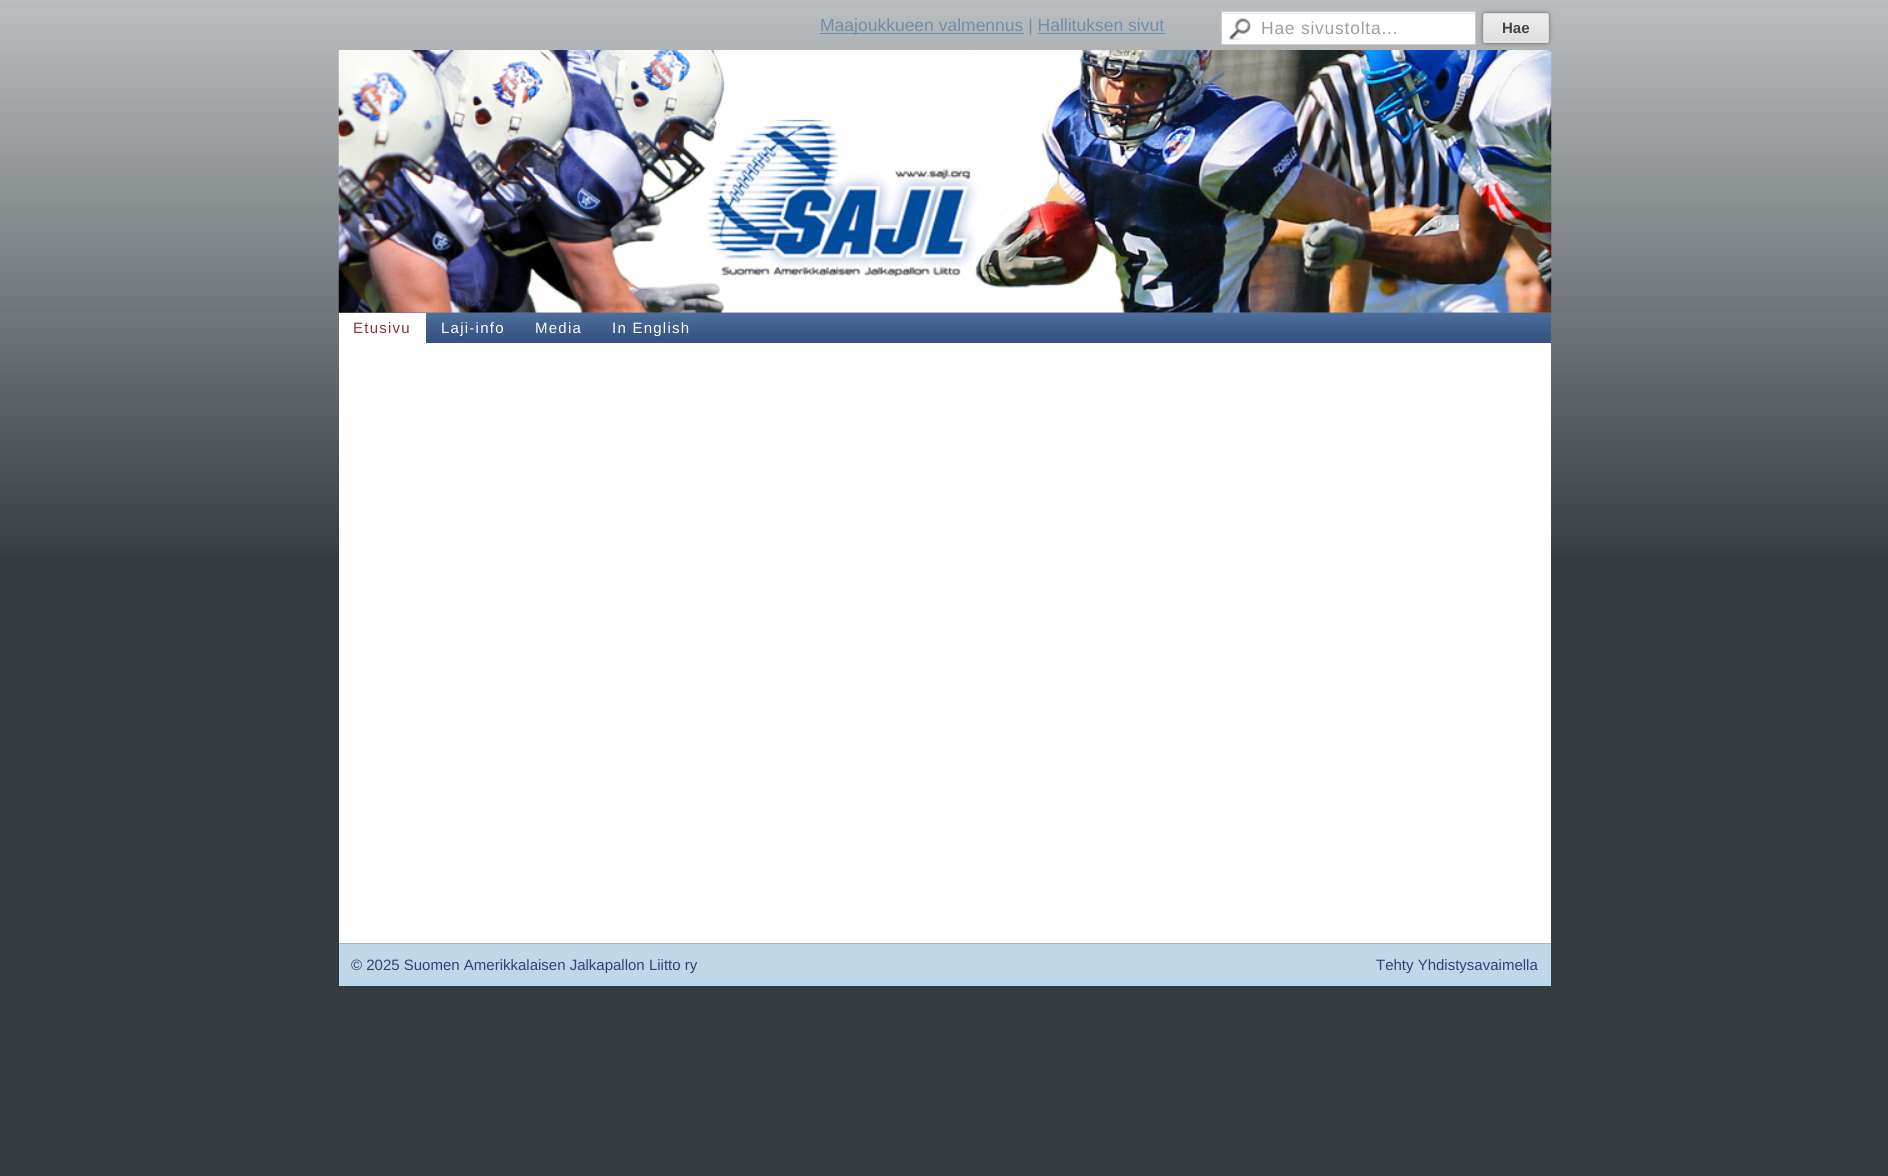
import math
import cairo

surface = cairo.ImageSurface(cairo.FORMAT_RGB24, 1888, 1176)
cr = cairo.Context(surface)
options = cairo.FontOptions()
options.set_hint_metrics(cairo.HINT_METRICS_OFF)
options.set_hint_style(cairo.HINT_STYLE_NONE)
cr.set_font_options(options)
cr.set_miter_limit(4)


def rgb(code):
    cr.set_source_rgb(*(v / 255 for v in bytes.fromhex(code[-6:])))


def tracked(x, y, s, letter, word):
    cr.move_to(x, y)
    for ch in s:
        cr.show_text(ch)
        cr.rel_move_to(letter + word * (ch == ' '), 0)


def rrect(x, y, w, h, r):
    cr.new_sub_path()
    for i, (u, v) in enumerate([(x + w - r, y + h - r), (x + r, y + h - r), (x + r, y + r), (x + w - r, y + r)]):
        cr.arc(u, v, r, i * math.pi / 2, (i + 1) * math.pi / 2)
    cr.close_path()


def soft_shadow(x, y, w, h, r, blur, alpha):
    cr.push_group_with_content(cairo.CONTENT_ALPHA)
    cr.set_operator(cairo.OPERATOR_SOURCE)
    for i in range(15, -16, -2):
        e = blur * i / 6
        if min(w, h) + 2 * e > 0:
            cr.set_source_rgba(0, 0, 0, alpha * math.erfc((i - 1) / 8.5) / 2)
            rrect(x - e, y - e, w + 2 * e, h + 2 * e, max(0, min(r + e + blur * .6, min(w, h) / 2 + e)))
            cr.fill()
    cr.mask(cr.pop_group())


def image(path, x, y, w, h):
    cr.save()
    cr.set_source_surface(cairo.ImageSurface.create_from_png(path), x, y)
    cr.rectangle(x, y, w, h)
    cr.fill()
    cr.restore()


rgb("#ffffff")
cr.paint()
gradient = cairo.LinearGradient(944, 0, 944, 1176)
gradient.add_color_stop_rgba(0, 0.733, 0.745, 0.753, 1)
gradient.add_color_stop_rgba(0.48, 0.204, 0.235, 0.259, 1)
gradient.add_color_stop_rgba(1, 0.204, 0.235, 0.259, 1)
cr.set_source(gradient)
cr.rectangle(0, 0, 1888, 1176)
cr.fill()
rgb("#728ea6")
cr.rectangle(820, 33, 204, 1)
cr.fill()
cr.rectangle(1038, 33, 127, 1)
cr.fill()
rgb("#ffffff")
rrect(1221, 11, 255, 34, 2.5)
cr.fill()
image("img/1.png", 1228, 17, 24, 23)
rgb("#e6e6e6")
cr.new_path()
cr.move_to(1224, 14)
cr.line_to(1474, 14)
cr.line_to(1475, 15)
cr.line_to(1475, 13)
cr.line_to(1224, 13)
cr.line_to(1223, 14)
cr.close_path()
cr.fill()
rrect(1221.5, 11.5, 254, 33, 2)
rgb("#cccccc")
cr.set_line_width(1)
cr.stroke()
rgb("#666666")
soft_shadow(1483, 13, 66, 30, 2.5, 2, 1)
gradient = cairo.LinearGradient(1484, 14, 1484, 41)
gradient.add_color_stop_rgba(0.05, 0.929, 0.929, 0.929, 1)
gradient.add_color_stop_rgba(1, 0.875, 0.875, 0.875, 1)
cr.set_source(gradient)
cr.rectangle(1483, 14, 66, 27)
cr.fill()
cr.save()
rrect(1483, 13, 66, 30, 2.5)
cr.clip()
gradient = cairo.LinearGradient(1484, 41, 1484, 69)
gradient.add_color_stop_rgba(0.05, 0.929, 0.929, 0.929, 1)
gradient.add_color_stop_rgba(1, 0.875, 0.875, 0.875, 1)
cr.set_source(gradient)
cr.rectangle(1483, 41, 66, 2)
cr.fill()
cr.restore()
rrect(1483.5, 13.5, 65, 29, 2)
rgb("#dcdcdc")
cr.stroke()
image("img/2.png", 338, 50, 1214, 263)
gradient = cairo.LinearGradient(945, 312, 945, 343)
gradient.add_color_stop_rgba(0, 0.298, 0.439, 0.627, 1)
gradient.add_color_stop_rgba(0.87, 0.212, 0.325, 0.506, 1)
gradient.add_color_stop_rgba(1, 0.212, 0.325, 0.506, 1)
cr.set_source(gradient)
cr.rectangle(426, 313, 1125, 30)
cr.fill()
for x, y, w, h, color in [
    (339, 313, 87, 30, "#ffffff"),
    (339, 343, 1212, 600, "#ffffff"),
    (339, 944, 1212, 42, "#bed8e9"),
    (339, 943, 1212, 1, "#a6b7c2"),
]:
    rgb(color)
    cr.rectangle(x, y, w, h)
    cr.fill()
cr.select_font_face("Liberation Sans")
cr.set_font_size(17.5)
rgb("#728ea6")
cr.move_to(820, 31)
cr.show_text("Maajoukkueen valmennus | Hallituksen sivut")
rgb("#9f9f9f")
tracked(1261, 34, "Hae sivustolta...", 0.75, 0)
cr.select_font_face("Liberation Sans", cairo.FONT_SLANT_NORMAL, cairo.FONT_WEIGHT_BOLD)
cr.set_font_size(15)
rgb("#444444")
cr.move_to(1502, 33)
cr.show_text("Hae")
cr.select_font_face("Liberation Sans")
rgb("#8c3232")
tracked(353, 333, "Etusivu", 1.25, 0)
rgb("#ffffff")
for x, y, s in [
    (441, 333, "Laji-info"),
    (535, 333, "Media"),
    (612, 333, "In English"),
]:
    tracked(x, y, s, 1.25, 0)
rgb("#324373")
cr.move_to(351, 970)
cr.show_text("© 2025 Suomen Amerikkalaisen Jalkapallon Liitto ry")
cr.move_to(1376, 970)
cr.show_text("Tehty Yhdistysavaimella")
surface.write_to_png("page.png")
